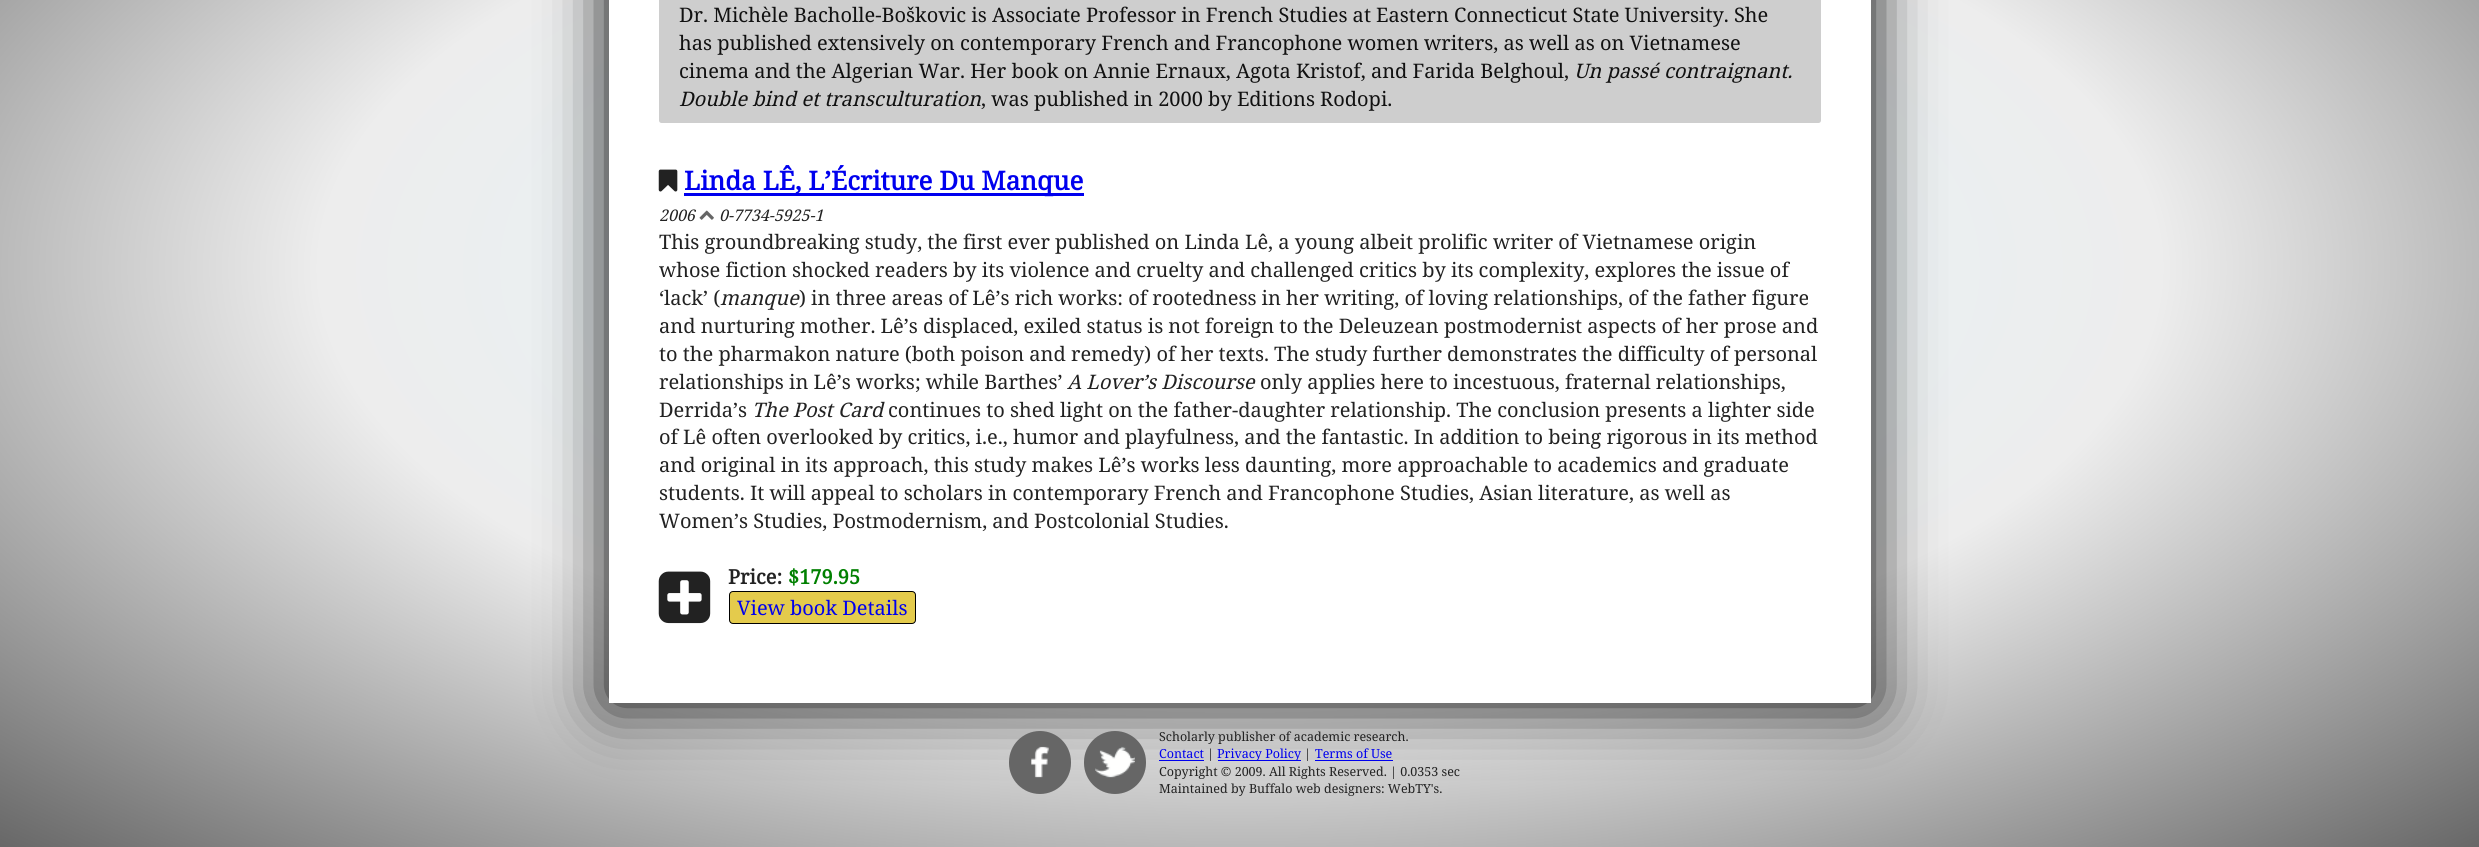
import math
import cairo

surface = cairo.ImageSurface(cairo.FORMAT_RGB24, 2479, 847)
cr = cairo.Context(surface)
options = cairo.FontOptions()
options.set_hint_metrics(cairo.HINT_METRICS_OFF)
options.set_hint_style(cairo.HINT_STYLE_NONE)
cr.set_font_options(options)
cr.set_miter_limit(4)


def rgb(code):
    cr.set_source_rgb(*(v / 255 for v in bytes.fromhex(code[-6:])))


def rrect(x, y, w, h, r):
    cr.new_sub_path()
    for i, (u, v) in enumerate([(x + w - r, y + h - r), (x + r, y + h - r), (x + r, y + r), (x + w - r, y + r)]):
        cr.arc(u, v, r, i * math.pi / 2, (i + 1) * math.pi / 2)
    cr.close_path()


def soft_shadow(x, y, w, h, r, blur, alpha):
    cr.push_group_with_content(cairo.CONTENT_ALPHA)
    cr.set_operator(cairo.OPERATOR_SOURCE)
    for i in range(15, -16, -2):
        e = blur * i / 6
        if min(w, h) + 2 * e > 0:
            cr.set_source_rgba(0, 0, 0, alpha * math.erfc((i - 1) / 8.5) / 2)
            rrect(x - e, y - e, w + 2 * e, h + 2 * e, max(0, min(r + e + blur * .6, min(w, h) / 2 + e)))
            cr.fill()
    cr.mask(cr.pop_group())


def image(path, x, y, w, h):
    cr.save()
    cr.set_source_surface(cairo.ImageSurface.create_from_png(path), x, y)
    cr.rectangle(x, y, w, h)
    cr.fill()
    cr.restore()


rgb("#ffffff")
cr.paint()
gradient = cairo.RadialGradient(0, 0, 0, 0, 0, 1)
gradient.set_matrix(cairo.Matrix(1 / 1754, 0, 0, 1 / 820, -1 * 1240 / 1754, -1 * 268 / 820))
gradient.add_color_stop_rgba(0, 0.894, 0.961, 0.988, 1)
gradient.add_color_stop_rgba(0.52, 0.929, 0.929, 0.929, 1)
gradient.add_color_stop_rgba(1, 0.4, 0.4, 0.4, 1)
cr.set_source(gradient)
cr.rectangle(0, 0, 2479, 847)
cr.fill()
rgb("#000000")
soft_shadow(609, -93, 1262, 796, 0, 31, 1)
rgb("#ffffff")
cr.rectangle(609, 0, 1262, 703)
cr.fill()
rgb("#cecece")
rrect(659, -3, 1162, 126, 2.5)
cr.fill()
image("img/1.png", 658, 169, 20, 23)
rgb("#0000ee")
cr.rectangle(684, 193, 400, 3)
cr.fill()
image("img/2.png", 699, 210, 15, 10)
image("img/3.png", 658, 571, 53, 53)
rgb("#e4cb4c")
rrect(729.5, 591.5, 186, 32, 3.5)
cr.fill_preserve()
rgb("#000000")
cr.set_line_width(1)
cr.stroke()
rgb("#666666")
rrect(1009, 731, 62, 63, 31)
cr.fill()
image("img/4.png", 1031, 746, 18, 32)
rrect(1084, 731, 62, 63, 31)
cr.fill()
image("img/5.png", 1095, 746, 40, 32)
for x, y, w, h, color in [
    (1159, 760, 45, 1, "#0000ee"),
    (1218, 760, 83, 1, "#0000ee"),
    (1315, 760, 78, 1, "#0000ee"),
]:
    rgb(color)
    cr.rectangle(x, y, w, h)
    cr.fill()
cr.select_font_face("Noto Serif")
cr.set_font_size(20)
rgb("#111111")
for x, y, s in [
    (679, 22, "Dr. Michèle Bacholle-Boškovic is Associate Professor in French Studies at Eastern Connecticut State University. She"),
    (679, 50, "has published extensively on contemporary French and Francophone women writers, as well as on Vietnamese"),
    (679, 78, "cinema and the Algerian War. Her book on Annie Ernaux, Agota Kristof, and Farida Belghoul,"),
]:
    cr.move_to(x, y)
    cr.show_text(s)
cr.select_font_face("Noto Serif", cairo.FONT_SLANT_ITALIC)
cr.move_to(1574, 78)
cr.show_text("Un passé contraignant.")
cr.move_to(679, 106)
cr.show_text("Double bind et transculturation")
cr.select_font_face("Noto Serif")
cr.move_to(981, 106)
cr.show_text(", was published in 2000 by Editions Rodopi.")
cr.select_font_face("Noto Serif", cairo.FONT_SLANT_NORMAL, cairo.FONT_WEIGHT_BOLD)
cr.set_font_size(26)
rgb("#0000ee")
cr.move_to(684, 190)
cr.show_text("Linda LÊ, L’Écriture Du Manque")
cr.select_font_face("Noto Serif", cairo.FONT_SLANT_ITALIC)
cr.set_font_size(16)
rgb("#222222")
cr.move_to(659, 221)
cr.show_text("2006")
cr.move_to(719, 221)
cr.show_text("0-7734-5925-1")
cr.select_font_face("Noto Serif")
cr.set_font_size(20)
for x, y, s in [
    (659, 249, "This groundbreaking study, the first ever published on Linda Lê, a young albeit prolific writer of Vietnamese origin"),
    (659, 277, "whose fiction shocked readers by its violence and cruelty and challenged critics by its complexity, explores the issue of"),
    (659, 305, "‘lack’ ("),
]:
    cr.move_to(x, y)
    cr.show_text(s)
cr.select_font_face("Noto Serif", cairo.FONT_SLANT_ITALIC)
cr.move_to(720, 305)
cr.show_text("manque")
cr.select_font_face("Noto Serif")
for x, y, s in [
    (799, 305, ") in three areas of Lê’s rich works: of rootedness in her writing, of loving relationships, of the father figure"),
    (659, 333, "and nurturing mother. Lê’s displaced, exiled status is not foreign to the Deleuzean postmodernist aspects of her prose and"),
    (659, 361, "to the pharmakon nature (both poison and remedy) of her texts. The study further demonstrates the difficulty of personal"),
    (659, 389, "relationships in Lê’s works; while Barthes’"),
]:
    cr.move_to(x, y)
    cr.show_text(s)
cr.select_font_face("Noto Serif", cairo.FONT_SLANT_ITALIC)
cr.move_to(1067, 389)
cr.show_text("A Lover’s Discourse")
cr.select_font_face("Noto Serif")
cr.move_to(1260, 389)
cr.show_text("only applies here to incestuous, fraternal relationships,")
cr.move_to(659, 417)
cr.show_text("Derrida’s")
cr.select_font_face("Noto Serif", cairo.FONT_SLANT_ITALIC)
cr.move_to(752, 417)
cr.show_text("The Post Card")
cr.select_font_face("Noto Serif")
for x, y, s in [
    (888, 417, "continues to shed light on the father-daughter relationship. The conclusion presents a lighter side"),
    (659, 444, "of Lê often overlooked by critics, i.e., humor and playfulness, and the fantastic. In addition to being rigorous in its method"),
    (659, 472, "and original in its approach, this study makes Lê’s works less daunting, more approachable to academics and graduate"),
    (659, 500, "students. It will appeal to scholars in contemporary French and Francophone Studies, Asian literature, as well as"),
    (659, 528, "Women’s Studies, Postmodernism, and Postcolonial Studies."),
]:
    cr.move_to(x, y)
    cr.show_text(s)
cr.select_font_face("Noto Serif", cairo.FONT_SLANT_NORMAL, cairo.FONT_WEIGHT_BOLD)
cr.move_to(728, 584)
cr.show_text("Price:")
rgb("#008000")
cr.move_to(788, 584)
cr.show_text("$179.95")
cr.select_font_face("Noto Serif")
rgb("#0000ee")
cr.move_to(737, 615)
cr.show_text("View book Details")
cr.set_font_size(12.5)
rgb("#222222")
cr.move_to(1159, 741)
cr.show_text("Scholarly publisher of academic research.")
rgb("#0000ee")
cr.move_to(1159, 758)
cr.show_text("Contact")
rgb("#222222")
cr.move_to(1207, 758)
cr.show_text("|")
rgb("#0000ee")
cr.move_to(1217, 758)
cr.show_text("Privacy Policy")
rgb("#222222")
cr.move_to(1304, 758)
cr.show_text("|")
rgb("#0000ee")
cr.move_to(1315, 758)
cr.show_text("Terms of Use")
rgb("#222222")
cr.move_to(1159, 776)
cr.show_text("Copyright © 2009. All Rights Reserved. | 0.0353 sec")
cr.move_to(1159, 793)
cr.show_text("Maintained by Buffalo web designers: WebTY's.")
surface.write_to_png("page.png")
